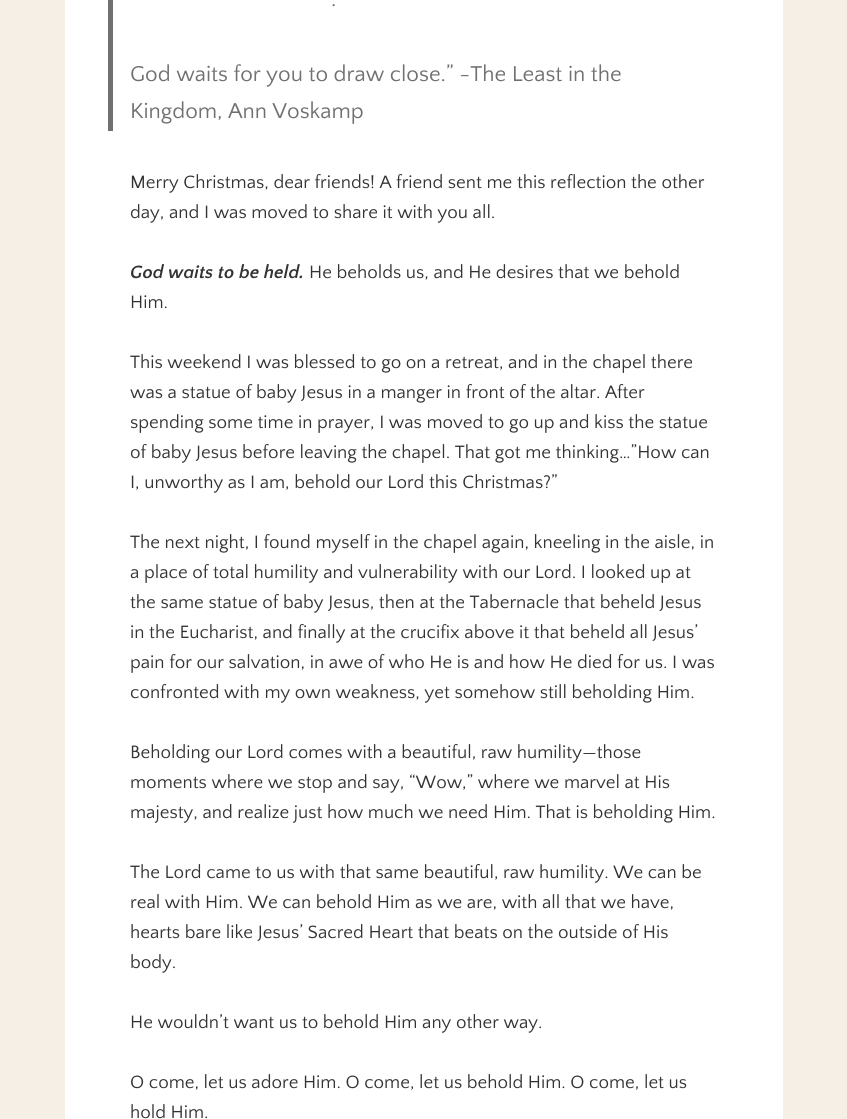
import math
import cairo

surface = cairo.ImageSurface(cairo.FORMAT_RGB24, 847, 1119)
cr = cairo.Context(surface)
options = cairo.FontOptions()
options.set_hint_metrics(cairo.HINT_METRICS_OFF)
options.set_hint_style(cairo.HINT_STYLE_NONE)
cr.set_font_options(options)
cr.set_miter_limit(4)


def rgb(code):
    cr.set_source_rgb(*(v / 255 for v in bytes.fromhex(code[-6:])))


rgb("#f5efe5")
cr.paint()
rgb("#ffffff")
cr.rectangle(65, 0, 718, 1119)
cr.fill()
rgb("#707070")
cr.rectangle(108, 0, 5, 131)
cr.fill()
cr.select_font_face("Quattrocento Sans")
cr.set_font_size(22.5)
for x, y, s in [
    (331, 6, "."),
    (130, 81, "God waits for you to draw close.” -The Least in the"),
    (130, 118, "Kingdom, Ann Voskamp"),
]:
    cr.move_to(x, y)
    cr.show_text(s)
cr.set_font_size(18.75)
rgb("#333333")
cr.move_to(130, 188)
cr.show_text("Merry Christmas, dear friends! A friend sent me this reflection the other")
cr.move_to(130, 218)
cr.show_text("day, and I was moved to share it with you all.")
cr.select_font_face("Quattrocento Sans", cairo.FONT_SLANT_ITALIC, cairo.FONT_WEIGHT_BOLD)
cr.move_to(130, 278)
cr.show_text("God waits to be held.")
cr.select_font_face("Quattrocento Sans")
for x, y, s in [
    (309, 278, "He beholds us, and He desires that we behold"),
    (130, 308, "Him."),
    (130, 368, "This weekend I was blessed to go on a retreat, and in the chapel there"),
    (130, 398, "was a statue of baby Jesus in a manger in front of the altar. After"),
    (130, 428, "spending some time in prayer, I was moved to go up and kiss the statue"),
    (130, 458, "of baby Jesus before leaving the chapel. That got me thinking…”How can"),
    (130, 488, "I, unworthy as I am, behold our Lord this Christmas?”"),
    (130, 548, "The next night, I found myself in the chapel again, kneeling in the aisle, in"),
    (130, 578, "a place of total humility and vulnerability with our Lord. I looked up at"),
    (130, 608, "the same statue of baby Jesus, then at the Tabernacle that beheld Jesus"),
    (130, 638, "in the Eucharist, and finally at the crucifix above it that beheld all Jesus’"),
    (130, 668, "pain for our salvation, in awe of who He is and how He died for us. I was"),
    (130, 698, "confronted with my own weakness, yet somehow still beholding Him."),
    (130, 758, "Beholding our Lord comes with a beautiful, raw humility—those"),
    (130, 788, "moments where we stop and say, “Wow,” where we marvel at His"),
    (130, 818, "majesty, and realize just how much we need Him. That is beholding Him."),
    (130, 878, "The Lord came to us with that same beautiful, raw humility. We can be"),
    (130, 908, "real with Him. We can behold Him as we are, with all that we have,"),
    (130, 938, "hearts bare like Jesus’ Sacred Heart that beats on the outside of His"),
    (130, 968, "body."),
    (130, 1028, "He wouldn’t want us to behold Him any other way."),
    (130, 1088, "O come, let us adore Him. O come, let us behold Him. O come, let us"),
    (130, 1118, "hold Him."),
]:
    cr.move_to(x, y)
    cr.show_text(s)
surface.write_to_png("page.png")
